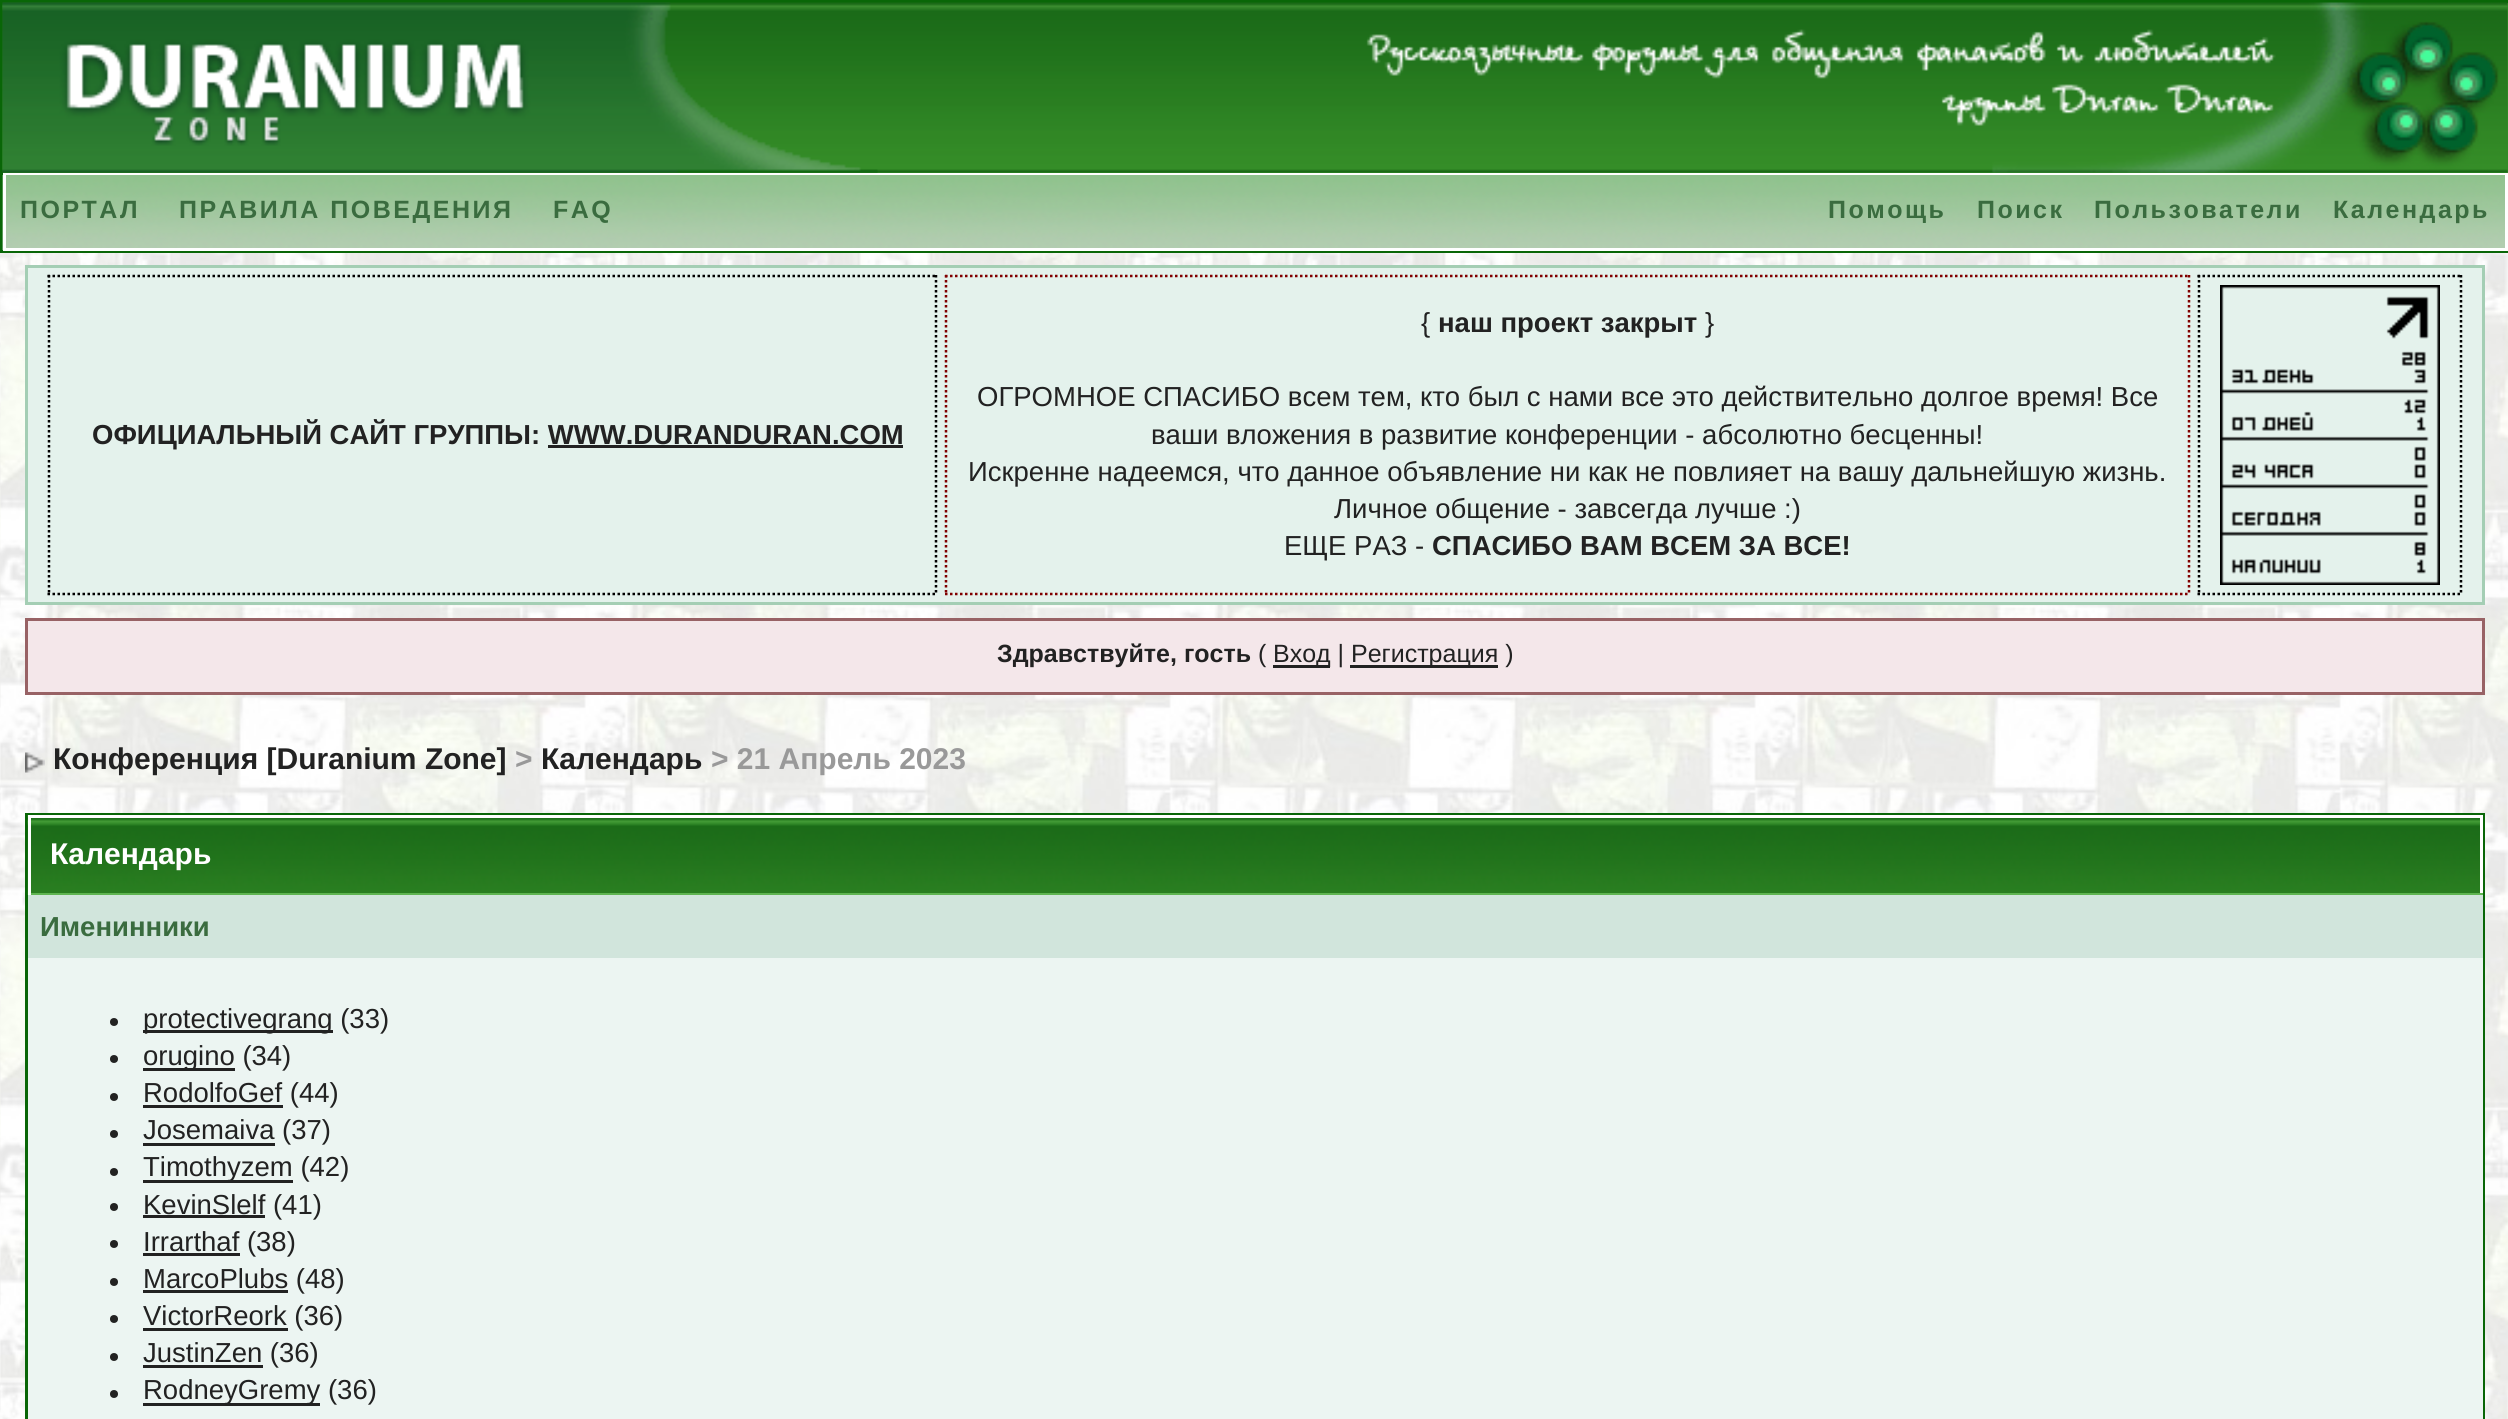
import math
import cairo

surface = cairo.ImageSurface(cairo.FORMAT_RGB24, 2508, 1419)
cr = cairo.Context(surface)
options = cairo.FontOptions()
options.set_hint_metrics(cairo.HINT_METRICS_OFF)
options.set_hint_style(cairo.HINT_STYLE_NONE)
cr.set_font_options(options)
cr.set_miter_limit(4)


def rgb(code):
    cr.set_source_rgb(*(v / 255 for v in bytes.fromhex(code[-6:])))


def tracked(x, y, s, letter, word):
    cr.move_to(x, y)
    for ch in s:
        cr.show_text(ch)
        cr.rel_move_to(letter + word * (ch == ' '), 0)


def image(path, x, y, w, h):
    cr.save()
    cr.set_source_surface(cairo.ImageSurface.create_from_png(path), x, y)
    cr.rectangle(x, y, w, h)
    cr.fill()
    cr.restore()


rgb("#ffffff")
cr.paint()
image("img/1.png", 0, 253, 2508, 1166)
cr.rectangle(1.5, 1.5, 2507, 250)
rgb("#096607")
cr.set_line_width(3)
cr.stroke()
rgb("#358d28")
cr.rectangle(3, 3, 2505, 170)
cr.fill()
image("img/2.png", 2, 2, 2506, 171)
rgb("#ffffff")
cr.rectangle(2507, 173, 1, 77)
cr.fill()
image("img/3.png", 2, 2, 876, 171)
image("img/4.png", 2, 175, 2503, 75)
cr.rectangle(3, 248, 2505, 3)
cr.fill()
cr.rectangle(3, 175, 3, 75)
cr.fill()
rgb("#e4f2ec")
cr.rectangle(26.5, 266.5, 2457, 337)
cr.fill_preserve()
rgb("#a4ceb4")
cr.stroke()
cr.new_path()
cr.move_to(47.5, 276)
cr.line_to(937.5, 276)
rgb("#000000")
cr.set_line_width(2.5)
cr.set_dash([2.5, 2.5])
cr.stroke()
cr.new_path()
cr.move_to(936, 275)
cr.line_to(936, 595)
cr.stroke()
cr.new_path()
cr.move_to(47.5, 594)
cr.line_to(937.5, 594)
cr.stroke()
cr.new_path()
cr.move_to(49, 275)
cr.line_to(49, 595)
cr.stroke()
rgb("#222222")
cr.rectangle(548, 445, 355, 3)
cr.fill()
cr.new_path()
cr.move_to(945, 276)
cr.line_to(2190, 276)
rgb("#800000")
cr.stroke()
cr.new_path()
cr.move_to(2189, 275)
cr.line_to(2189, 595)
cr.stroke()
cr.new_path()
cr.move_to(945, 594)
cr.line_to(2190, 594)
cr.stroke()
cr.new_path()
cr.move_to(946, 275)
cr.line_to(946, 595)
cr.stroke()
cr.new_path()
cr.move_to(2197.5, 276)
cr.line_to(2462.5, 276)
rgb("#000000")
cr.stroke()
cr.new_path()
cr.move_to(2461, 275)
cr.line_to(2461, 595)
cr.stroke()
cr.new_path()
cr.move_to(2197.5, 594)
cr.line_to(2462.5, 594)
cr.stroke()
cr.new_path()
cr.move_to(2199, 275)
cr.line_to(2199, 595)
cr.stroke()
image("img/5.png", 2220, 285, 220, 300)
rgb("#f4e7ea")
cr.rectangle(26.5, 619.5, 2457, 74)
cr.fill_preserve()
rgb("#986265")
cr.set_line_width(3)
cr.set_dash([])
cr.stroke()
rgb("#222222")
cr.rectangle(1273, 665, 57, 3)
cr.fill()
cr.rectangle(1350, 665, 148, 3)
cr.fill()
image("img/6.png", 25, 752, 20, 21)
cr.rectangle(26.5, 814.5, 2457, 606)
rgb("#096607")
cr.stroke()
image("img/7.png", 27, 815, 2453, 80)
for x, y, w, h, color in [
    (28, 815, 2455, 3, "#ffffff"),
    (2480, 815, 3, 80, "#ffffff"),
    (28, 893, 2455, 2, "#5fb551"),
    (28, 815, 3, 80, "#ffffff"),
    (28, 895, 2455, 63, "#d1e5dc"),
    (28, 958, 2455, 461, "#ecf5f2"),
]:
    rgb(color)
    cr.rectangle(x, y, w, h)
    cr.fill()
rgb("#222222")
cr.arc(114, 1022, 4, 0, 2 * math.pi)
cr.fill()
cr.rectangle(143, 1030, 190, 3)
cr.fill()
cr.arc(114, 1059, 4, 0, 2 * math.pi)
cr.fill()
cr.rectangle(143, 1068, 92, 3)
cr.fill()
cr.arc(114, 1097, 4, 0, 2 * math.pi)
cr.fill()
cr.rectangle(143, 1105, 140, 3)
cr.fill()
cr.arc(114, 1134, 4, 0, 2 * math.pi)
cr.fill()
cr.rectangle(143, 1143, 132, 3)
cr.fill()
cr.arc(114, 1172, 4, 0, 2 * math.pi)
cr.fill()
cr.rectangle(143, 1180, 150, 3)
cr.fill()
cr.arc(114, 1207, 4, 0, 2 * math.pi)
cr.fill()
cr.rectangle(143, 1215, 122, 3)
cr.fill()
cr.arc(114, 1244, 4, 0, 2 * math.pi)
cr.fill()
cr.rectangle(143, 1253, 97, 3)
cr.fill()
cr.arc(114, 1282, 4, 0, 2 * math.pi)
cr.fill()
cr.rectangle(143, 1290, 145, 3)
cr.fill()
cr.arc(114, 1319, 4, 0, 2 * math.pi)
cr.fill()
cr.rectangle(143, 1328, 145, 3)
cr.fill()
cr.arc(114, 1357, 4, 0, 2 * math.pi)
cr.fill()
cr.rectangle(143, 1365, 120, 3)
cr.fill()
cr.arc(114, 1394, 4, 0, 2 * math.pi)
cr.fill()
cr.rectangle(143, 1403, 177, 3)
cr.fill()
cr.select_font_face("Liberation Sans", cairo.FONT_SLANT_NORMAL, cairo.FONT_WEIGHT_BOLD)
cr.set_font_size(25)
rgb("#3a6c3f")
for x, y, s in [
    (20, 218, "ПОРТАЛ"),
    (179, 218, "ПРАВИЛА ПОВЕДЕНИЯ"),
    (553, 218, "FAQ"),
    (1828, 218, "Помощь"),
    (1977, 218, "Поиск"),
    (2094, 218, "Пользователи"),
    (2333, 218, "Календарь"),
]:
    tracked(x, y, s, 2.5, 0)
cr.set_font_size(27.5)
rgb("#222222")
cr.move_to(92, 444)
cr.show_text("ОФИЦИАЛЬНЫЙ САЙТ ГРУППЫ: WWW.DURANDURAN.COM")
cr.select_font_face("Liberation Sans")
cr.move_to(1421, 332)
cr.show_text("{")
cr.select_font_face("Liberation Sans", cairo.FONT_SLANT_NORMAL, cairo.FONT_WEIGHT_BOLD)
cr.move_to(1438, 332)
cr.show_text("наш проект закрыт")
cr.select_font_face("Liberation Sans")
for x, y, s in [
    (1705, 332, "}"),
    (977, 406, "ОГРОМНОЕ СПАСИБО всем тем, кто был с нами все это действительно долгое время! Все"),
    (1151, 444, "ваши вложения в развитие конференции - абсолютно бесценны!"),
    (968, 481, "Искренне надеемся, что данное объявление ни как не повлияет на вашу дальнейшую жизнь."),
    (1334, 518, "Личное общение - завсегда лучше :)"),
    (1284, 555, "ЕЩЕ РАЗ -"),
]:
    cr.move_to(x, y)
    cr.show_text(s)
cr.select_font_face("Liberation Sans", cairo.FONT_SLANT_NORMAL, cairo.FONT_WEIGHT_BOLD)
cr.move_to(1432, 555)
cr.show_text("СПАСИБО ВАМ ВСЕМ ЗА ВСЕ!")
cr.set_font_size(25)
cr.move_to(997, 662)
cr.show_text("Здравствуйте, гость")
cr.select_font_face("Liberation Sans")
for x, y, s in [
    (1258, 662, "("),
    (1273, 662, "Вход |"),
    (1351, 662, "Регистрация )"),
]:
    cr.move_to(x, y)
    cr.show_text(s)
cr.select_font_face("Liberation Sans", cairo.FONT_SLANT_NORMAL, cairo.FONT_WEIGHT_BOLD)
cr.set_font_size(30)
cr.move_to(53, 769)
cr.show_text("Конференция [Duranium Zone]")
rgb("#999999")
cr.move_to(515, 769)
cr.show_text(">")
rgb("#222222")
cr.move_to(541, 769)
cr.show_text("Календарь")
rgb("#999999")
cr.move_to(711, 769)
cr.show_text("> 21 Апрель 2023")
rgb("#ffffff")
cr.move_to(50, 864)
cr.show_text("Календарь")
cr.set_font_size(27.5)
rgb("#3a6c3f")
cr.move_to(40, 936)
cr.show_text("Именинники")
cr.select_font_face("Liberation Sans")
rgb("#222222")
for x, y, s in [
    (143, 1028, "protectivegrang (33)"),
    (143, 1065, "orugino (34)"),
    (143, 1102, "RodolfoGef (44)"),
    (143, 1139, "Josemaiva (37)"),
    (143, 1176, "Timothyzem (42)"),
    (143, 1214, "KevinSlelf (41)"),
    (143, 1251, "Irrarthaf (38)"),
    (143, 1288, "MarcoPlubs (48)"),
    (143, 1325, "VictorReork (36)"),
    (143, 1362, "JustinZen (36)"),
    (143, 1399, "RodneyGremy (36)"),
]:
    cr.move_to(x, y)
    cr.show_text(s)
surface.write_to_png("page.png")
